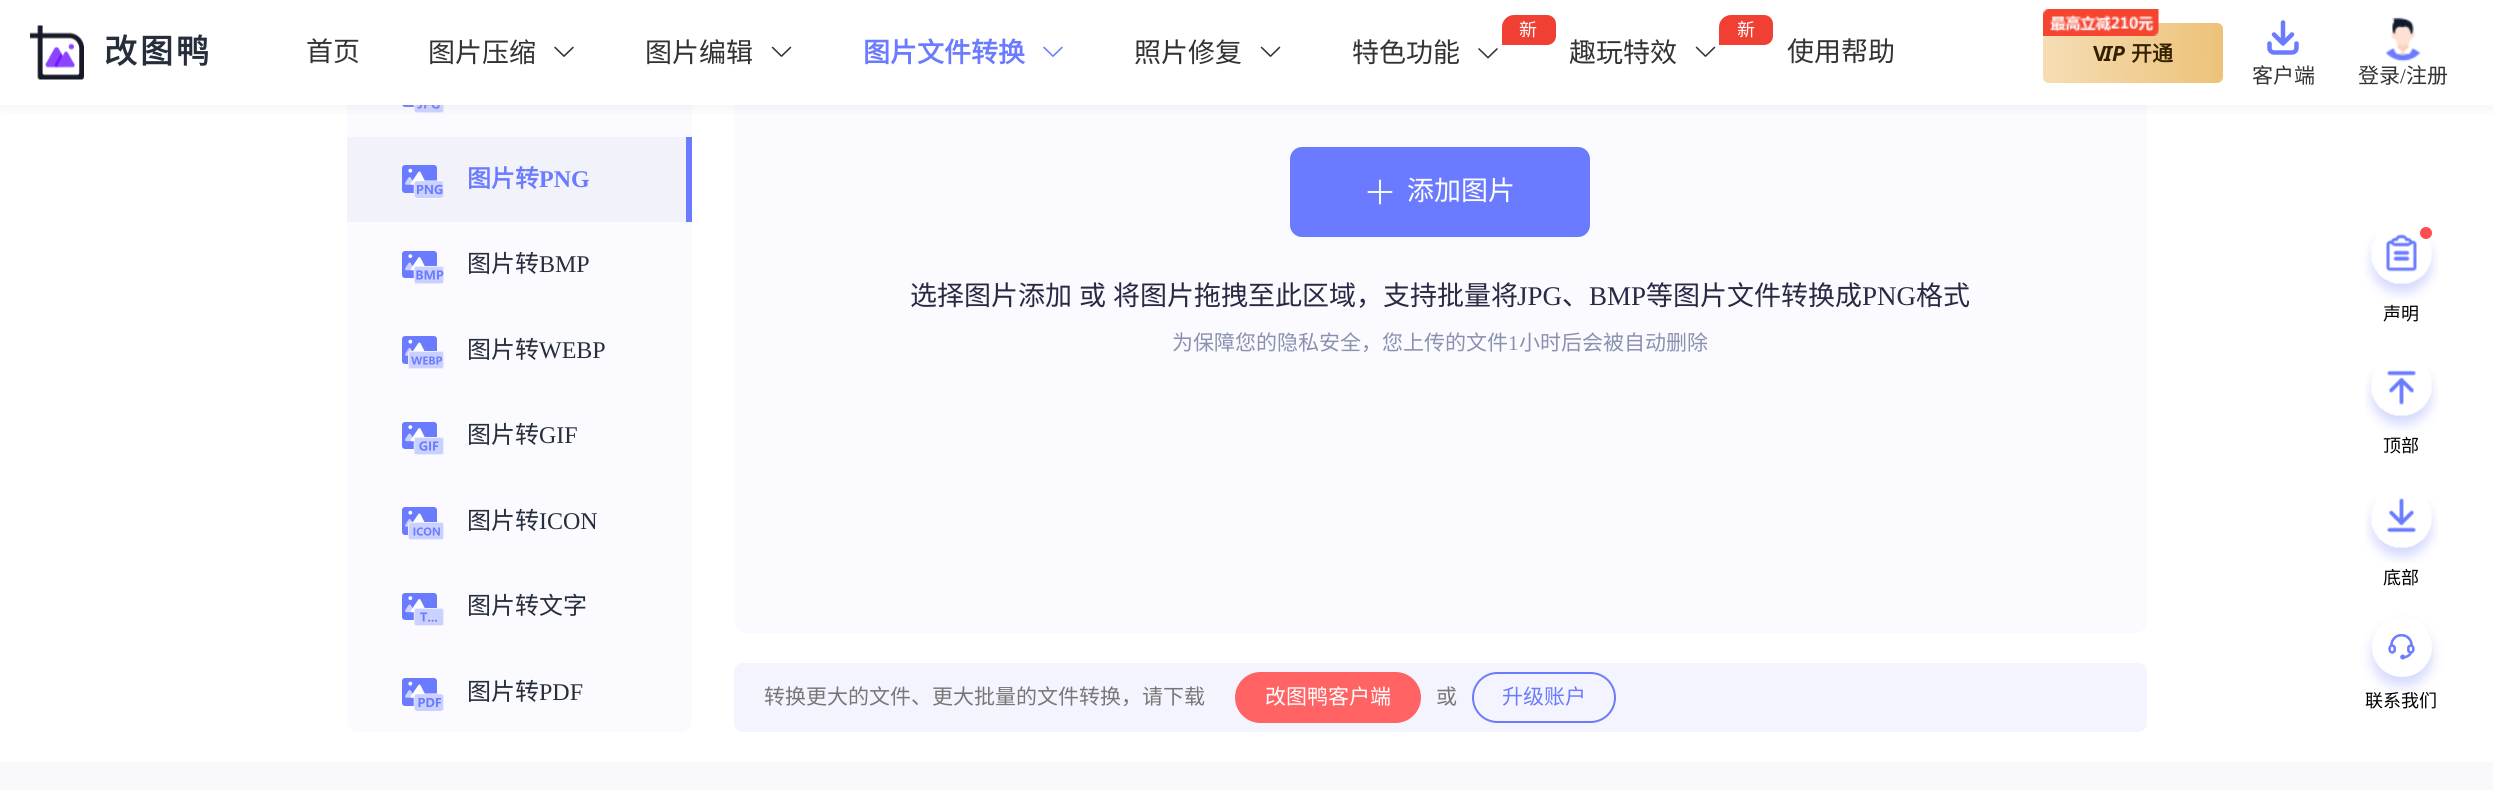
import math
import cairo

surface = cairo.ImageSurface(cairo.FORMAT_RGB24, 2493, 790)
cr = cairo.Context(surface)
options = cairo.FontOptions()
options.set_hint_metrics(cairo.HINT_METRICS_OFF)
options.set_hint_style(cairo.HINT_STYLE_NONE)
cr.set_font_options(options)
cr.set_miter_limit(4)


def rgb(code):
    cr.set_source_rgb(*(v / 255 for v in bytes.fromhex(code[-6:])))


def tracked(x, y, s, letter, word):
    cr.move_to(x, y)
    for ch in s:
        cr.show_text(ch)
        cr.rel_move_to(letter + word * (ch == ' '), 0)


def rrect(x, y, w, h, r):
    cr.new_sub_path()
    for i, (u, v) in enumerate([(x + w - r, y + h - r), (x + r, y + h - r), (x + r, y + r), (x + w - r, y + r)]):
        cr.arc(u, v, r, i * math.pi / 2, (i + 1) * math.pi / 2)
    cr.close_path()


def soft_shadow(x, y, w, h, r, blur, alpha):
    cr.push_group_with_content(cairo.CONTENT_ALPHA)
    cr.set_operator(cairo.OPERATOR_SOURCE)
    for i in range(15, -16, -2):
        e = blur * i / 6
        if min(w, h) + 2 * e > 0:
            cr.set_source_rgba(0, 0, 0, alpha * math.erfc((i - 1) / 8.5) / 2)
            rrect(x - e, y - e, w + 2 * e, h + 2 * e, max(0, min(r + e + blur * .6, min(w, h) / 2 + e)))
            cr.fill()
    cr.mask(cr.pop_group())


def image(path, x, y, w, h):
    cr.save()
    cr.set_source_surface(cairo.ImageSurface.create_from_png(path), x, y)
    cr.rectangle(x, y, w, h)
    cr.fill()
    cr.restore()


rgb("#ffffff")
cr.paint()
rgb("#fafaff")
rrect(347, -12, 345, 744, 12)
cr.fill()
rrect(734, -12, 1413, 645, 12)
cr.fill()
rgb("#ffffff")
cr.rectangle(347, 0, 1800, 105)
cr.fill()
image("img/8.png", 402, 105, 42, 8)
cr.save()
cr.rectangle(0, 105, 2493, 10)
cr.clip()
rgb("#c4c4c4")
soft_shadow(0, 5, 2493, 105, 0, 4.5, 0.16)
cr.restore()
image("img/1.png", 30, 25, 54, 55)
image("img/2.png", 554, 46, 20, 11)
image("img/3.png", 771, 46, 21, 11)
image("img/4.png", 1043, 46, 20, 11)
image("img/3.png", 1260, 46, 21, 11)
rgb("#f03f33")
cr.new_path()
cr.move_to(1514, 15)
cr.line_to(1547, 15)
cr.curve_to(1552, 15, 1556, 19, 1556, 24)
cr.line_to(1556, 36)
cr.curve_to(1556, 41, 1552, 45, 1547, 45)
cr.line_to(1502, 45)
cr.line_to(1502, 27)
cr.curve_to(1502, 20.5, 1507.5, 15, 1514, 15)
cr.close_path()
cr.fill()
image("img/5.png", 1478, 48, 20, 11)
cr.new_path()
cr.move_to(1731, 15)
cr.line_to(1764, 15)
cr.curve_to(1769, 15, 1773, 19, 1773, 24)
cr.line_to(1773, 36)
cr.curve_to(1773, 41, 1769, 45, 1764, 45)
cr.line_to(1719, 45)
cr.line_to(1719, 27)
cr.curve_to(1719, 20.5, 1724.5, 15, 1731, 15)
cr.close_path()
cr.fill()
image("img/3.png", 1695, 46, 21, 11)
gradient = cairo.LinearGradient(2043, 53, 2223, 52)
gradient.add_color_stop_rgba(0, 0.961, 0.867, 0.706, 1)
gradient.add_color_stop_rgba(1, 0.929, 0.761, 0.475, 1)
cr.set_source(gradient)
rrect(2043, 23, 180, 60, 6)
cr.fill()
image("img/6.png", 2043, 9, 116, 27)
cr.new_path()
cr.move_to(2274, 34.5)
cr.line_to(2283, 43.5)
cr.line_to(2292, 34.5)
cr.move_to(2283, 43.5)
cr.line_to(2283, 22.5)
cr.move_to(2269.5, 43.5)
cr.line_to(2269.5, 48)
cr.curve_to(2269.5, 50.5, 2271.5, 52.5, 2274, 52.5)
cr.line_to(2292, 52.5)
cr.curve_to(2294.5, 52.5, 2296.5, 50.5, 2296.5, 48)
cr.line_to(2296.5, 43.5)
rgb("#6a7bff")
cr.set_line_width(4.5)
cr.set_line_cap(cairo.LINE_CAP_ROUND)
cr.set_line_join(cairo.LINE_JOIN_ROUND)
cr.stroke()
image("img/7.png", 2385, 17, 36, 45)
rgb("#f2f2fb")
cr.rectangle(347, 137, 339, 85)
cr.fill()
image("img/9.png", 402, 165, 42, 34)
rgb("#6a7bff")
cr.rectangle(686, 137, 6, 85)
cr.fill()
image("img/10.png", 402, 251, 42, 33)
image("img/11.png", 402, 336, 42, 33)
image("img/12.png", 402, 422, 42, 33)
image("img/13.png", 402, 507, 42, 33)
image("img/14.png", 402, 593, 42, 33)
image("img/15.png", 402, 678, 42, 33)
rrect(1290, 147, 300, 90, 12)
cr.fill()
image("img/16.png", 1367, 179, 26, 26)
rgb("#f4f4ff")
rrect(734, 663, 1413, 69, 9)
cr.fill()
rgb("#ff6363")
rrect(1235, 672, 186, 51, 25.5)
cr.fill()
rrect(1473, 673, 142, 49, 24.5)
rgb("#6a7bff")
cr.set_line_width(2)
cr.set_line_cap(cairo.LINE_CAP_BUTT)
cr.set_line_join(cairo.LINE_JOIN_MITER)
cr.stroke()
image("img/17.png", 2364, 234, 75, 66)
rgb("#ff4d4f")
cr.arc(2426, 233, 6, 0, 2 * math.pi)
cr.fill()
image("img/18.png", 2365, 369, 73, 62)
image("img/19.png", 2365, 498, 73, 65)
rgb("#5668f5")
soft_shadow(2372, 626, 60, 60, 30, 6, 0.25)
rgb("#ffffff")
cr.arc(2402, 647, 30, 0, 2 * math.pi)
cr.fill()
image("img/20.png", 2388, 634, 27, 26)
rgb("#f9f9fb")
cr.rectangle(0, 762, 2493, 28)
cr.fill()
cr.select_font_face("Noto Sans CJK SC", cairo.FONT_SLANT_NORMAL, cairo.FONT_WEIGHT_BOLD)
cr.set_font_size(33)
rgb("#272e3b")
tracked(104, 63, "改图鸭", 3, 0)
cr.select_font_face("Noto Sans CJK SC")
cr.set_font_size(27)
rgb("#333333")
for x, y, s in [
    (306, 61, "首页"),
    (428, 62, "图片压缩"),
    (645, 62, "图片编辑"),
]:
    cr.move_to(x, y)
    cr.show_text(s)
cr.select_font_face("Noto Sans CJK SC", cairo.FONT_SLANT_NORMAL, cairo.FONT_WEIGHT_BOLD)
rgb("#6a7bff")
cr.move_to(863, 62)
cr.show_text("图片文件转换")
cr.select_font_face("Noto Sans CJK SC")
rgb("#333333")
cr.move_to(1134, 62)
cr.show_text("照片修复")
cr.set_font_size(18)
rgb("#ffffff")
cr.move_to(1519, 36)
cr.show_text("新")
cr.set_font_size(27)
rgb("#333333")
cr.move_to(1352, 62)
cr.show_text("特色功能")
cr.set_font_size(18)
rgb("#ffffff")
cr.move_to(1737, 36)
cr.show_text("新")
cr.set_font_size(27)
rgb("#333333")
cr.move_to(1569, 62)
cr.show_text("趣玩特效")
cr.move_to(1787, 61)
cr.show_text("使用帮助")
cr.select_font_face("Noto Sans", cairo.FONT_SLANT_NORMAL, cairo.FONT_WEIGHT_BOLD)
cr.set_font_size(21)
rgb("#322000")
cr.move_to(2093, 61)
cr.show_text("V")
cr.select_font_face("Noto Sans", cairo.FONT_SLANT_ITALIC, cairo.FONT_WEIGHT_BOLD)
cr.move_to(2104, 61)
cr.show_text("IP")
cr.select_font_face("Noto Sans CJK SC", cairo.FONT_SLANT_NORMAL, cairo.FONT_WEIGHT_BOLD)
cr.move_to(2131, 61)
cr.show_text("开通")
cr.select_font_face("Noto Sans CJK SC")
rgb("#333333")
cr.move_to(2252, 83)
cr.show_text("客户端")
cr.move_to(2358, 83)
cr.show_text("登录")
cr.select_font_face("Liberation Serif")
cr.move_to(2400, 83)
cr.show_text("/")
cr.select_font_face("Noto Sans CJK SC")
cr.move_to(2406, 83)
cr.show_text("注册")
cr.select_font_face("Noto Sans CJK SC", cairo.FONT_SLANT_NORMAL, cairo.FONT_WEIGHT_BOLD)
cr.set_font_size(24)
rgb("#6a7bff")
cr.move_to(467, 187)
cr.show_text("图片转")
cr.select_font_face("Liberation Serif", cairo.FONT_SLANT_NORMAL, cairo.FONT_WEIGHT_BOLD)
cr.move_to(539, 187)
cr.show_text("PNG")
cr.select_font_face("Noto Sans CJK SC")
rgb("#272e3b")
cr.move_to(467, 272)
cr.show_text("图片转")
cr.select_font_face("Liberation Serif")
cr.move_to(539, 272)
cr.show_text("BMP")
cr.select_font_face("Noto Sans CJK SC")
cr.move_to(467, 358)
cr.show_text("图片转")
cr.select_font_face("Liberation Serif")
cr.move_to(539, 358)
cr.show_text("WEBP")
cr.select_font_face("Noto Sans CJK SC")
cr.move_to(467, 443)
cr.show_text("图片转")
cr.select_font_face("Liberation Serif")
cr.move_to(539, 443)
cr.show_text("GIF")
cr.select_font_face("Noto Sans CJK SC")
cr.move_to(467, 529)
cr.show_text("图片转")
cr.select_font_face("Liberation Serif")
cr.move_to(539, 529)
cr.show_text("ICON")
cr.select_font_face("Noto Sans CJK SC")
cr.move_to(467, 614)
cr.show_text("图片转文字")
cr.move_to(467, 700)
cr.show_text("图片转")
cr.select_font_face("Liberation Serif")
cr.move_to(539, 700)
cr.show_text("PDF")
cr.select_font_face("Noto Sans CJK SC")
cr.set_font_size(27)
rgb("#ffffff")
cr.move_to(1407, 200)
cr.show_text("添加图片")
rgb("#282a43")
tracked(910, 305, "选择图片添加 或 将图片拖拽至此区域，支持批量将", 0, 1)
cr.select_font_face("Liberation Serif")
cr.move_to(1517, 305)
cr.show_text("JPG")
cr.select_font_face("Noto Sans CJK SC")
cr.move_to(1562, 305)
cr.show_text("、")
cr.select_font_face("Liberation Serif")
cr.move_to(1589, 305)
cr.show_text("BMP")
cr.select_font_face("Noto Sans CJK SC")
cr.move_to(1646, 305)
cr.show_text("等图片文件转换成")
cr.select_font_face("Liberation Serif")
cr.move_to(1862, 305)
cr.show_text("PNG")
cr.select_font_face("Noto Sans CJK SC")
cr.move_to(1916, 305)
cr.show_text("格式")
cr.set_font_size(21)
rgb("#8991af")
cr.move_to(1172, 350)
cr.show_text("为保障您的隐私安全，您上传的文件")
cr.select_font_face("Liberation Serif")
cr.move_to(1508, 350)
cr.show_text("1")
cr.select_font_face("Noto Sans CJK SC")
cr.move_to(1519, 350)
cr.show_text("小时后会被自动删除")
rgb("#777777")
cr.move_to(764, 704)
cr.show_text("转换更大的文件、更大批量的文件转换，请下载")
rgb("#ffffff")
cr.move_to(1265, 704)
cr.show_text("改图鸭客户端")
rgb("#777777")
cr.move_to(1436, 704)
cr.show_text("或")
rgb("#6a7bff")
cr.move_to(1502, 704)
cr.show_text("升级账户")
cr.set_font_size(18)
rgb("#000000")
for x, y, s in [
    (2383, 320, "声明"),
    (2383, 452, "顶部"),
    (2383, 584, "底部"),
    (2365, 707, "联系我们"),
]:
    cr.move_to(x, y)
    cr.show_text(s)
surface.write_to_png("page.png")
